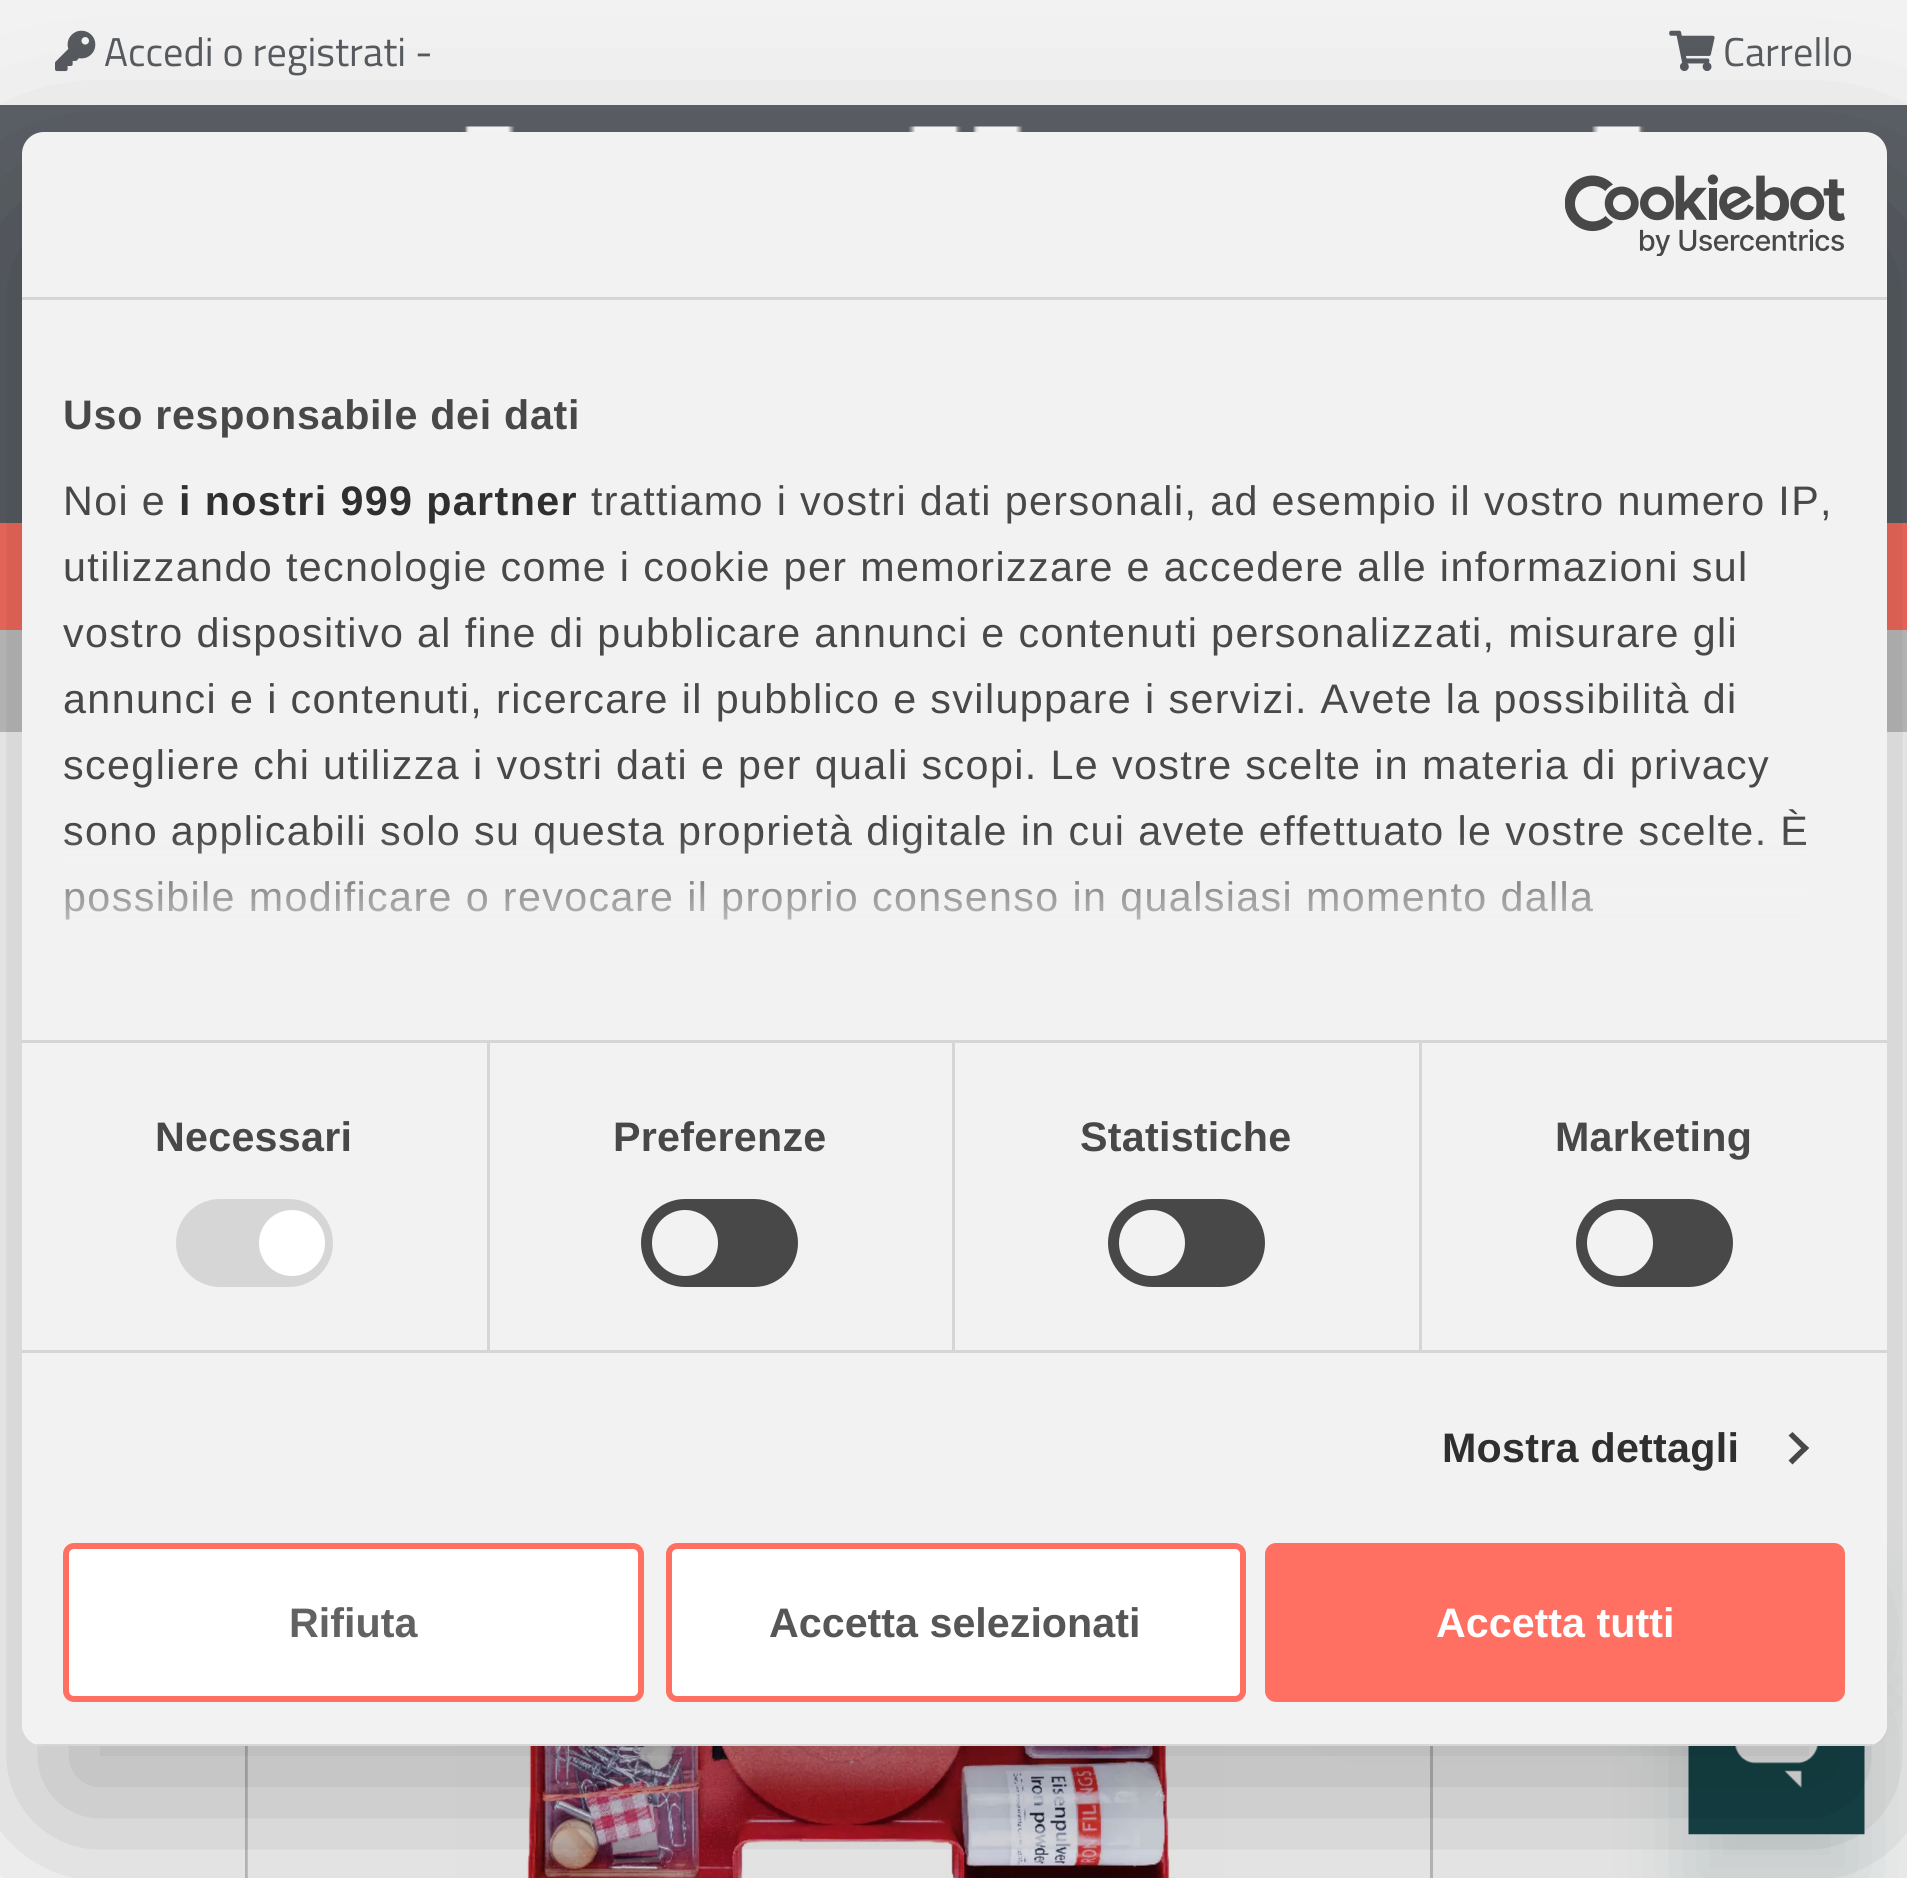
import math
import cairo

surface = cairo.ImageSurface(cairo.FORMAT_RGB24, 1907, 1878)
cr = cairo.Context(surface)
options = cairo.FontOptions()
options.set_hint_metrics(cairo.HINT_METRICS_OFF)
options.set_hint_style(cairo.HINT_STYLE_NONE)
cr.set_font_options(options)
cr.set_miter_limit(4)


def rgb(code):
    cr.set_source_rgb(*(v / 255 for v in bytes.fromhex(code[-6:])))


def tracked(x, y, s, letter, word):
    cr.move_to(x, y)
    for ch in s:
        cr.show_text(ch)
        cr.rel_move_to(letter + word * (ch == ' '), 0)


def rrect(x, y, w, h, r):
    cr.new_sub_path()
    for i, (u, v) in enumerate([(x + w - r, y + h - r), (x + r, y + h - r), (x + r, y + r), (x + w - r, y + r)]):
        cr.arc(u, v, r, i * math.pi / 2, (i + 1) * math.pi / 2)
    cr.close_path()


def soft_shadow(x, y, w, h, r, blur, alpha):
    cr.push_group_with_content(cairo.CONTENT_ALPHA)
    cr.set_operator(cairo.OPERATOR_SOURCE)
    for i in range(15, -16, -2):
        e = blur * i / 6
        if min(w, h) + 2 * e > 0:
            cr.set_source_rgba(0, 0, 0, alpha * math.erfc((i - 1) / 8.5) / 2)
            rrect(x - e, y - e, w + 2 * e, h + 2 * e, max(0, min(r + e + blur * .6, min(w, h) / 2 + e)))
            cr.fill()
    cr.mask(cr.pop_group())


def image(path, x, y, w, h):
    cr.save()
    cr.set_source_surface(cairo.ImageSurface.create_from_png(path), x, y)
    cr.rectangle(x, y, w, h)
    cr.fill()
    cr.restore()


rgb("#ffffff")
cr.paint()
rgb("#f2f2f2")
cr.rectangle(0, 0, 1907, 105)
cr.fill()
image("img/1.png", 55, 30, 41, 42)
image("img/2.png", 1669, 30, 46, 41)
rgb("#5c6167")
cr.rectangle(0, 105, 1907, 418)
cr.fill()
image("img/3.png", 462, 126, 1183, 6)
rgb("#ff7062")
cr.rectangle(0, 523, 1907, 107)
cr.fill()
rgb("#c9c8c8")
cr.rectangle(0, 630, 1907, 102)
cr.fill()
cr.rectangle(246.5, 799.5, 1185, 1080)
cr.set_line_width(3)
cr.stroke()
image("img/5.png", 247, 1746, 1183, 132)
rgb("#17494d")
soft_shadow(1320, 1570, 545, 121, 55, 41, 0.15)
soft_shadow(1689, 1713, 176, 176, 0, 41, 0.15)
image("img/6.png", 1688, 1746, 177, 89)
cr.save()
cr.set_fill_rule(cairo.FILL_RULE_EVEN_ODD)
cr.new_path()
cr.move_to(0, 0)
cr.line_to(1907, 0)
cr.line_to(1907, 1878)
cr.line_to(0, 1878)
cr.close_path()
cr.move_to(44, 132)
cr.line_to(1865, 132)
cr.curve_to(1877, 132, 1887, 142, 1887, 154)
cr.line_to(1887, 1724)
cr.curve_to(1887, 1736, 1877, 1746, 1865, 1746)
cr.line_to(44, 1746)
cr.curve_to(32, 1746, 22, 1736, 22, 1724)
cr.line_to(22, 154)
cr.curve_to(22, 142, 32, 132, 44, 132)
cr.close_path()
cr.clip()
rgb("#000000")
soft_shadow(22, 220, 1865, 1614, 22, 93.5, 0.3)
cr.restore()
rgb("#f2f2f2")
rrect(22, 132, 1865, 1614, 22)
cr.fill()
rgb("#d6d6d6")
cr.rectangle(22, 297, 1865, 3)
cr.fill()
image("img/4.png", 1565, 174, 280, 82)
for x, y, w, h, color in [
    (487, 1042, 3, 308, "#d6d6d6"),
    (952, 1042, 3, 308, "#d6d6d6"),
    (1419, 1042, 3, 308, "#d6d6d6"),
    (22, 1040, 1865, 3, "#d6d6d6"),
    (22, 1350, 1865, 3, "#d6d6d6"),
]:
    rgb(color)
    cr.rectangle(x, y, w, h)
    cr.fill()
rrect(176, 1199, 157, 88, 44)
cr.fill()
rgb("#ffffff")
cr.arc(292, 1243, 33, 0, 2 * math.pi)
cr.fill()
rgb("#484848")
rrect(641, 1199, 157, 88, 44)
cr.fill()
rgb("#f2f2f2")
cr.arc(685, 1243, 33, 0, 2 * math.pi)
cr.fill()
rgb("#484848")
rrect(1108, 1199, 157, 88, 44)
cr.fill()
rgb("#f2f2f2")
cr.arc(1152, 1243, 33, 0, 2 * math.pi)
cr.fill()
rgb("#484848")
rrect(1576, 1199, 157, 88, 44)
cr.fill()
rgb("#f2f2f2")
cr.arc(1620, 1243, 33, 0, 2 * math.pi)
cr.fill()
rgb("#484848")
cr.new_path()
cr.move_to(1792.5, 1432)
cr.line_to(1809, 1448)
cr.line_to(1805, 1452)
cr.line_to(1788.5, 1435.5)
cr.close_path()
cr.fill()
cr.new_path()
cr.move_to(1805, 1444.5)
cr.line_to(1809, 1448)
cr.line_to(1792.5, 1464.5)
cr.line_to(1788.5, 1460.5)
cr.close_path()
cr.fill()
cr.save()
rrect(22, 132, 1865, 1614, 22)
cr.clip()
rgb("#d6d6d6")
cr.rectangle(35, 1744, 1839, 2)
cr.fill()
cr.restore()
rgb("#ffffff")
rrect(66, 1546, 575, 153, 8)
cr.fill_preserve()
rgb("#ff7062")
cr.set_line_width(6)
cr.stroke()
rgb("#ffffff")
rrect(669, 1546, 574, 153, 8)
cr.fill_preserve()
rgb("#ff7062")
cr.stroke()
rrect(1268, 1546, 574, 153, 8)
cr.fill_preserve()
cr.stroke()
cr.select_font_face("Titillium Web")
cr.set_font_size(40.25)
rgb("#56595d")
cr.move_to(104, 66)
cr.show_text("Accedi o registrati -")
cr.move_to(1723, 66)
cr.show_text("Carrello")
cr.select_font_face("Liberation Sans", cairo.FONT_SLANT_NORMAL, cairo.FONT_WEIGHT_BOLD)
cr.set_font_size(41.25)
rgb("#484848")
tracked(63, 429, "Uso responsabile dei dati", 0.7, 0)
cr.select_font_face("Liberation Sans")
tracked(63, 515, "Noi e", 1.38, 0)
cr.select_font_face("Liberation Sans", cairo.FONT_SLANT_NORMAL, cairo.FONT_WEIGHT_BOLD)
rgb("#2f2f2f")
tracked(179, 515, "i nostri 999 partner", 1.38, 0)
cr.select_font_face("Liberation Sans")
rgb("#484848")
for x, y, s in [
    (591, 515, "trattiamo i vostri dati personali, ad esempio il vostro numero IP,"),
    (63, 581, "utilizzando tecnologie come i cookie per memorizzare e accedere alle informazioni sul"),
    (63, 647, "vostro dispositivo al fine di pubblicare annunci e contenuti personalizzati, misurare gli"),
    (63, 713, "annunci e i contenuti, ricercare il pubblico e sviluppare i servizi. Avete la possibilità di"),
    (63, 779, "scegliere chi utilizza i vostri dati e per quali scopi. Le vostre scelte in materia di privacy"),
    (63, 845, "sono applicabili solo su questa proprietà digitale in cui avete effettuato le vostre scelte. È"),
    (63, 911, "possibile modificare o revocare il proprio consenso in qualsiasi momento dalla"),
]:
    tracked(x, y, s, 1.38, 0)
gradient = cairo.LinearGradient(936, 1041, 936, 834)
gradient.add_color_stop_rgba(0, 0.949, 0.949, 0.949, 1)
gradient.add_color_stop_rgba(0.5, 0.949, 0.949, 0.949, 0.8)
gradient.add_color_stop_rgba(1, 0.949, 0.949, 0.949, 0)
cr.set_source(gradient)
cr.rectangle(64, 837, 1742, 83)
cr.fill()
cr.select_font_face("Liberation Sans", cairo.FONT_SLANT_NORMAL, cairo.FONT_WEIGHT_BOLD)
rgb("#484848")
for x, y, s in [
    (155, 1151, "Necessari"),
    (613, 1151, "Preferenze"),
    (1080, 1151, "Statistiche"),
    (1555, 1151, "Marketing"),
]:
    tracked(x, y, s, 0.25, 0)
rgb("#2f2f2f")
tracked(1442, 1462, "Mostra dettagli", 0.25, 0)
rgb("#626262")
cr.move_to(289, 1637)
cr.show_text("Rifiuta")
rgb("#565656")
cr.move_to(769, 1637)
cr.show_text("Accetta selezionati")
rgb("#ffffff")
cr.move_to(1436, 1637)
cr.show_text("Accetta tutti")
surface.write_to_png("page.png")
